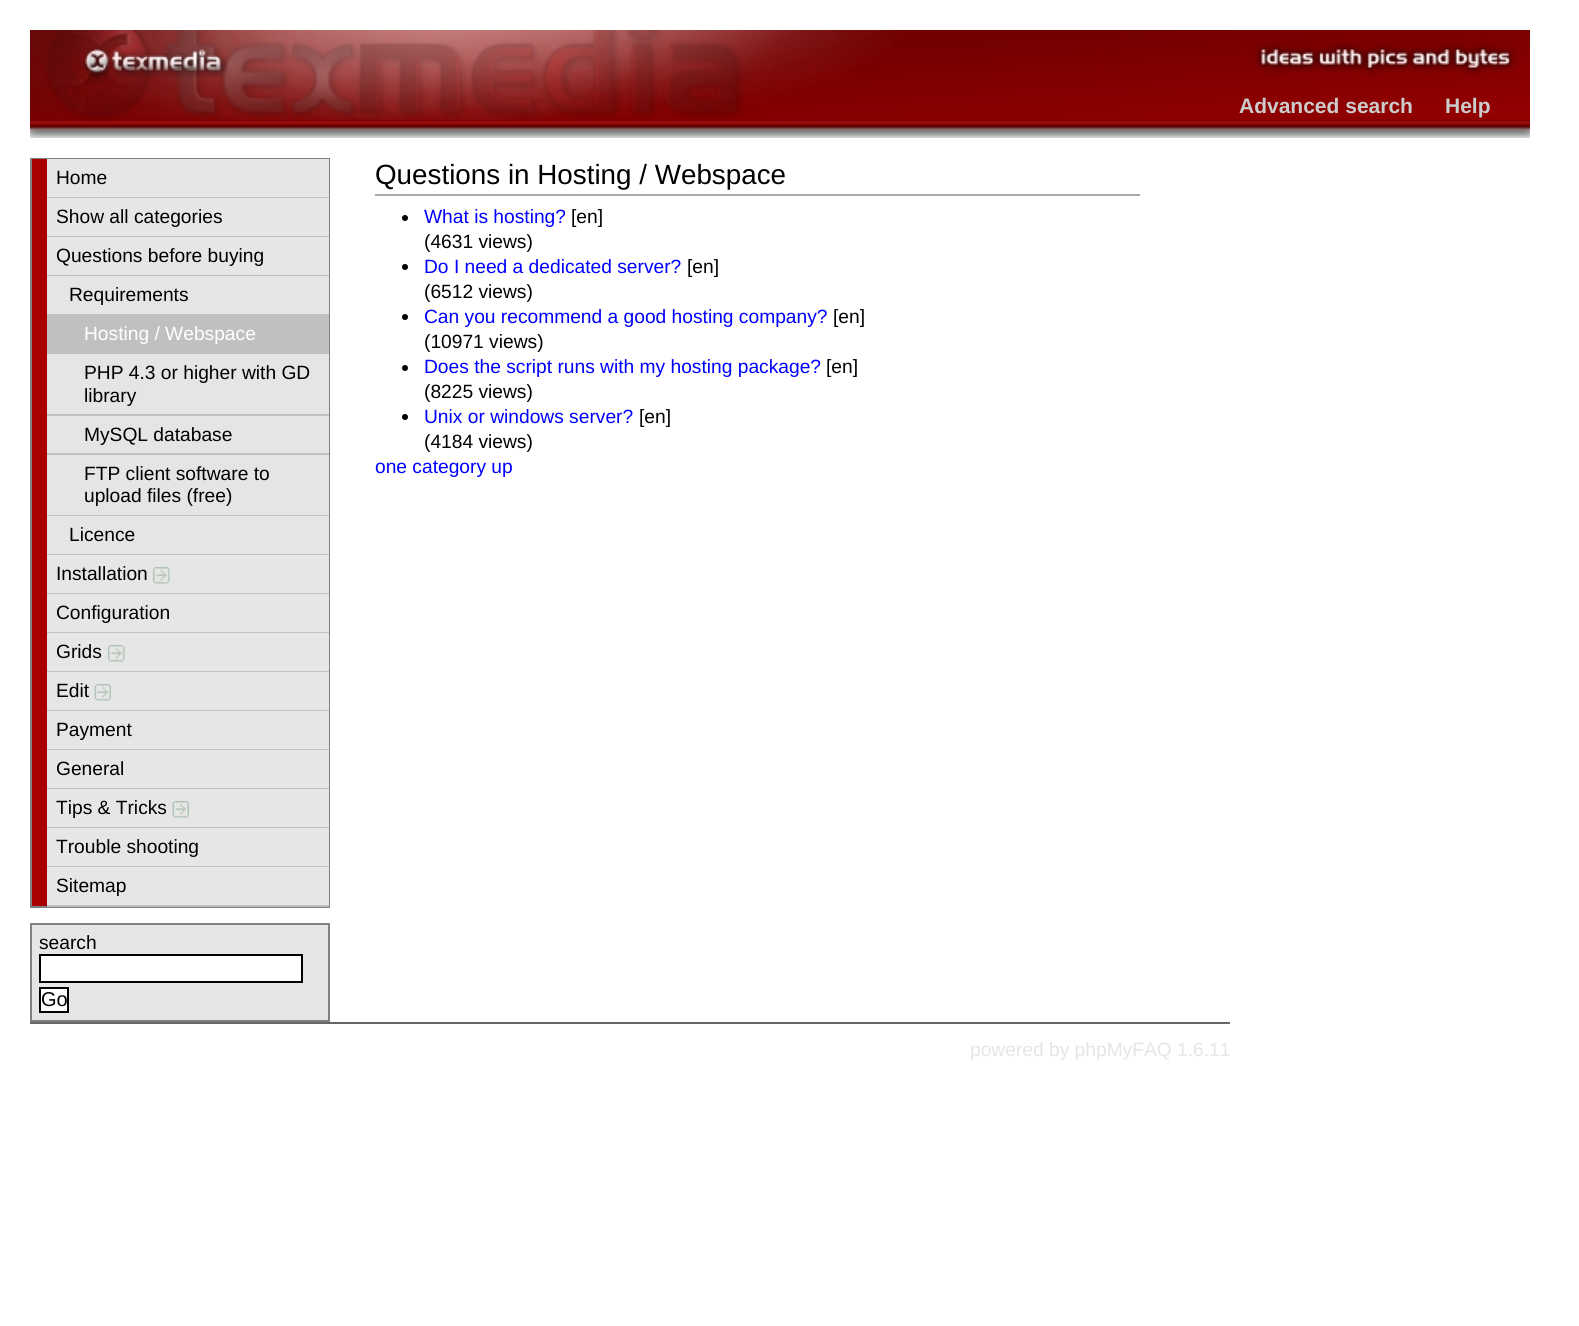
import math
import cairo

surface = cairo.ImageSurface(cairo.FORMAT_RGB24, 1579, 1326)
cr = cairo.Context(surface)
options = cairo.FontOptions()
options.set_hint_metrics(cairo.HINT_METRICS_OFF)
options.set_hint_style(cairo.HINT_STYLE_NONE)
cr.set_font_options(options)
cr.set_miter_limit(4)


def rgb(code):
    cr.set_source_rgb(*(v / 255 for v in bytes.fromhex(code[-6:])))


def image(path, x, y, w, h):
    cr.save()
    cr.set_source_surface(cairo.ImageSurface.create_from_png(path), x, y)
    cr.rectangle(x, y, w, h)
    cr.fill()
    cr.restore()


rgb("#ffffff")
cr.paint()
image("img/1.png", 30, 30, 1500, 108)
cr.rectangle(31, 159, 298, 748)
rgb("#808080")
cr.stroke()
for x, y, w, h, color in [
    (32, 159, 15, 747, "#a80000"),
    (47, 159, 282, 38, "#e6e6e6"),
    (47, 197, 282, 1, "#c0c0c0"),
    (47, 198, 282, 38, "#e6e6e6"),
    (47, 236, 282, 1, "#c0c0c0"),
    (47, 237, 282, 38, "#e6e6e6"),
    (47, 275, 282, 1, "#c0c0c0"),
    (47, 276, 282, 38, "#e5e5e5"),
    (47, 314, 282, 40, "#c0c0c0"),
    (47, 354, 282, 60, "#e5e5e5"),
    (47, 414, 282, 2, "#c0c0c0"),
    (47, 416, 282, 37, "#e5e5e5"),
    (47, 453, 282, 2, "#c0c0c0"),
    (47, 455, 282, 60, "#e5e5e5"),
    (47, 515, 282, 1, "#c0c0c0"),
    (47, 516, 282, 38, "#e5e5e5"),
    (47, 554, 282, 1, "#c0c0c0"),
    (47, 555, 282, 38, "#e6e6e6"),
    (47, 593, 282, 1, "#c0c0c0"),
]:
    rgb(color)
    cr.rectangle(x, y, w, h)
    cr.fill()
image("img/2.png", 153, 567, 17, 17)
for x, y, w, h, color in [
    (47, 594, 282, 38, "#e6e6e6"),
    (47, 632, 282, 1, "#c0c0c0"),
    (47, 633, 282, 38, "#e6e6e6"),
    (47, 671, 282, 1, "#c0c0c0"),
]:
    rgb(color)
    cr.rectangle(x, y, w, h)
    cr.fill()
image("img/2.png", 108, 645, 17, 17)
rgb("#e6e6e6")
cr.rectangle(47, 672, 282, 38)
cr.fill()
rgb("#c0c0c0")
cr.rectangle(47, 710, 282, 1)
cr.fill()
image("img/3.png", 94, 684, 17, 17)
for x, y, w, h, color in [
    (47, 711, 282, 38, "#e6e6e6"),
    (47, 749, 282, 1, "#c0c0c0"),
    (47, 750, 282, 38, "#e6e6e6"),
    (47, 788, 282, 1, "#c0c0c0"),
    (47, 789, 282, 38, "#e6e6e6"),
    (47, 827, 282, 1, "#c0c0c0"),
]:
    rgb(color)
    cr.rectangle(x, y, w, h)
    cr.fill()
image("img/3.png", 172, 801, 17, 17)
for x, y, w, h, color in [
    (47, 828, 282, 38, "#e6e6e6"),
    (47, 866, 282, 1, "#c0c0c0"),
    (47, 867, 282, 38, "#e6e6e6"),
    (47, 905, 282, 2, "#c0c0c0"),
]:
    rgb(color)
    cr.rectangle(x, y, w, h)
    cr.fill()
rgb("#e6e6e6")
cr.rectangle(31, 924, 298, 97)
cr.fill_preserve()
rgb("#808080")
cr.stroke()
rgb("#ffffff")
cr.rectangle(40, 955, 262, 27)
cr.fill_preserve()
rgb("#000000")
cr.stroke()
rgb("#ffffff")
cr.rectangle(40, 988, 28, 24)
cr.fill_preserve()
rgb("#000000")
cr.stroke()
rgb("#a9a9a9")
cr.rectangle(375, 194, 765, 2)
cr.fill()
rgb("#000000")
cr.arc(405, 218, 3, 0, 2 * math.pi)
cr.fill()
cr.arc(405, 267, 3, 0, 2 * math.pi)
cr.fill()
cr.arc(405, 317, 3, 0, 2 * math.pi)
cr.fill()
cr.arc(405, 368, 3, 0, 2 * math.pi)
cr.fill()
cr.arc(405, 417, 3, 0, 2 * math.pi)
cr.fill()
rgb("#666666")
cr.rectangle(30, 1022, 1200, 2)
cr.fill()
cr.select_font_face("Liberation Sans", cairo.FONT_SLANT_NORMAL, cairo.FONT_WEIGHT_BOLD)
cr.set_font_size(21)
rgb("#cccccc")
cr.move_to(1239, 113)
cr.show_text("Advanced search")
cr.move_to(1445, 113)
cr.show_text("Help")
cr.select_font_face("Liberation Sans")
cr.set_font_size(19.2)
rgb("#000000")
for x, y, s in [
    (56, 184, "Home"),
    (56, 223, "Show all categories"),
    (56, 262, "Questions before buying"),
    (69, 301, "Requirements"),
]:
    cr.move_to(x, y)
    cr.show_text(s)
rgb("#ffffff")
cr.move_to(84, 340)
cr.show_text("Hosting / Webspace")
rgb("#000000")
for x, y, s in [
    (84, 379, "PHP 4.3 or higher with GD"),
    (84, 402, "library"),
    (84, 441, "MySQL database"),
    (84, 480, "FTP client software to"),
    (84, 502, "upload files (free)"),
    (69, 541, "Licence"),
    (56, 580, "Installation"),
    (56, 619, "Configuration"),
    (56, 658, "Grids"),
    (56, 697, "Edit"),
    (56, 736, "Payment"),
    (56, 775, "General"),
    (56, 814, "Tips & Tricks"),
    (56, 853, "Trouble shooting"),
    (56, 892, "Sitemap"),
    (39, 949, "search"),
]:
    cr.move_to(x, y)
    cr.show_text(s)
cr.set_font_size(20)
cr.move_to(41, 1006)
cr.show_text("Go")
cr.set_font_size(27.8)
cr.move_to(375, 184)
cr.show_text("Questions in Hosting / Webspace")
cr.set_font_size(19.2)
rgb("#0000ff")
cr.move_to(424, 223)
cr.show_text("What is hosting?")
rgb("#000000")
cr.move_to(571, 223)
cr.show_text("[en]")
cr.move_to(424, 248)
cr.show_text("(4631 views)")
rgb("#0000ff")
cr.move_to(424, 273)
cr.show_text("Do I need a dedicated server?")
rgb("#000000")
cr.move_to(687, 273)
cr.show_text("[en]")
cr.move_to(424, 298)
cr.show_text("(6512 views)")
rgb("#0000ff")
cr.move_to(424, 323)
cr.show_text("Can you recommend a good hosting company?")
rgb("#000000")
cr.move_to(833, 323)
cr.show_text("[en]")
cr.move_to(424, 348)
cr.show_text("(10971 views)")
rgb("#0000ff")
cr.move_to(424, 373)
cr.show_text("Does the script runs with my hosting package?")
rgb("#000000")
cr.move_to(826, 373)
cr.show_text("[en]")
cr.move_to(424, 398)
cr.show_text("(8225 views)")
rgb("#0000ff")
cr.move_to(424, 423)
cr.show_text("Unix or windows server?")
rgb("#000000")
cr.move_to(639, 423)
cr.show_text("[en]")
cr.move_to(424, 448)
cr.show_text("(4184 views)")
rgb("#0000ff")
cr.move_to(375, 473)
cr.show_text("one category up")
rgb("#e5e5e5")
cr.move_to(970, 1056)
cr.show_text("powered by phpMyFAQ 1.6.11")
surface.write_to_png("page.png")
